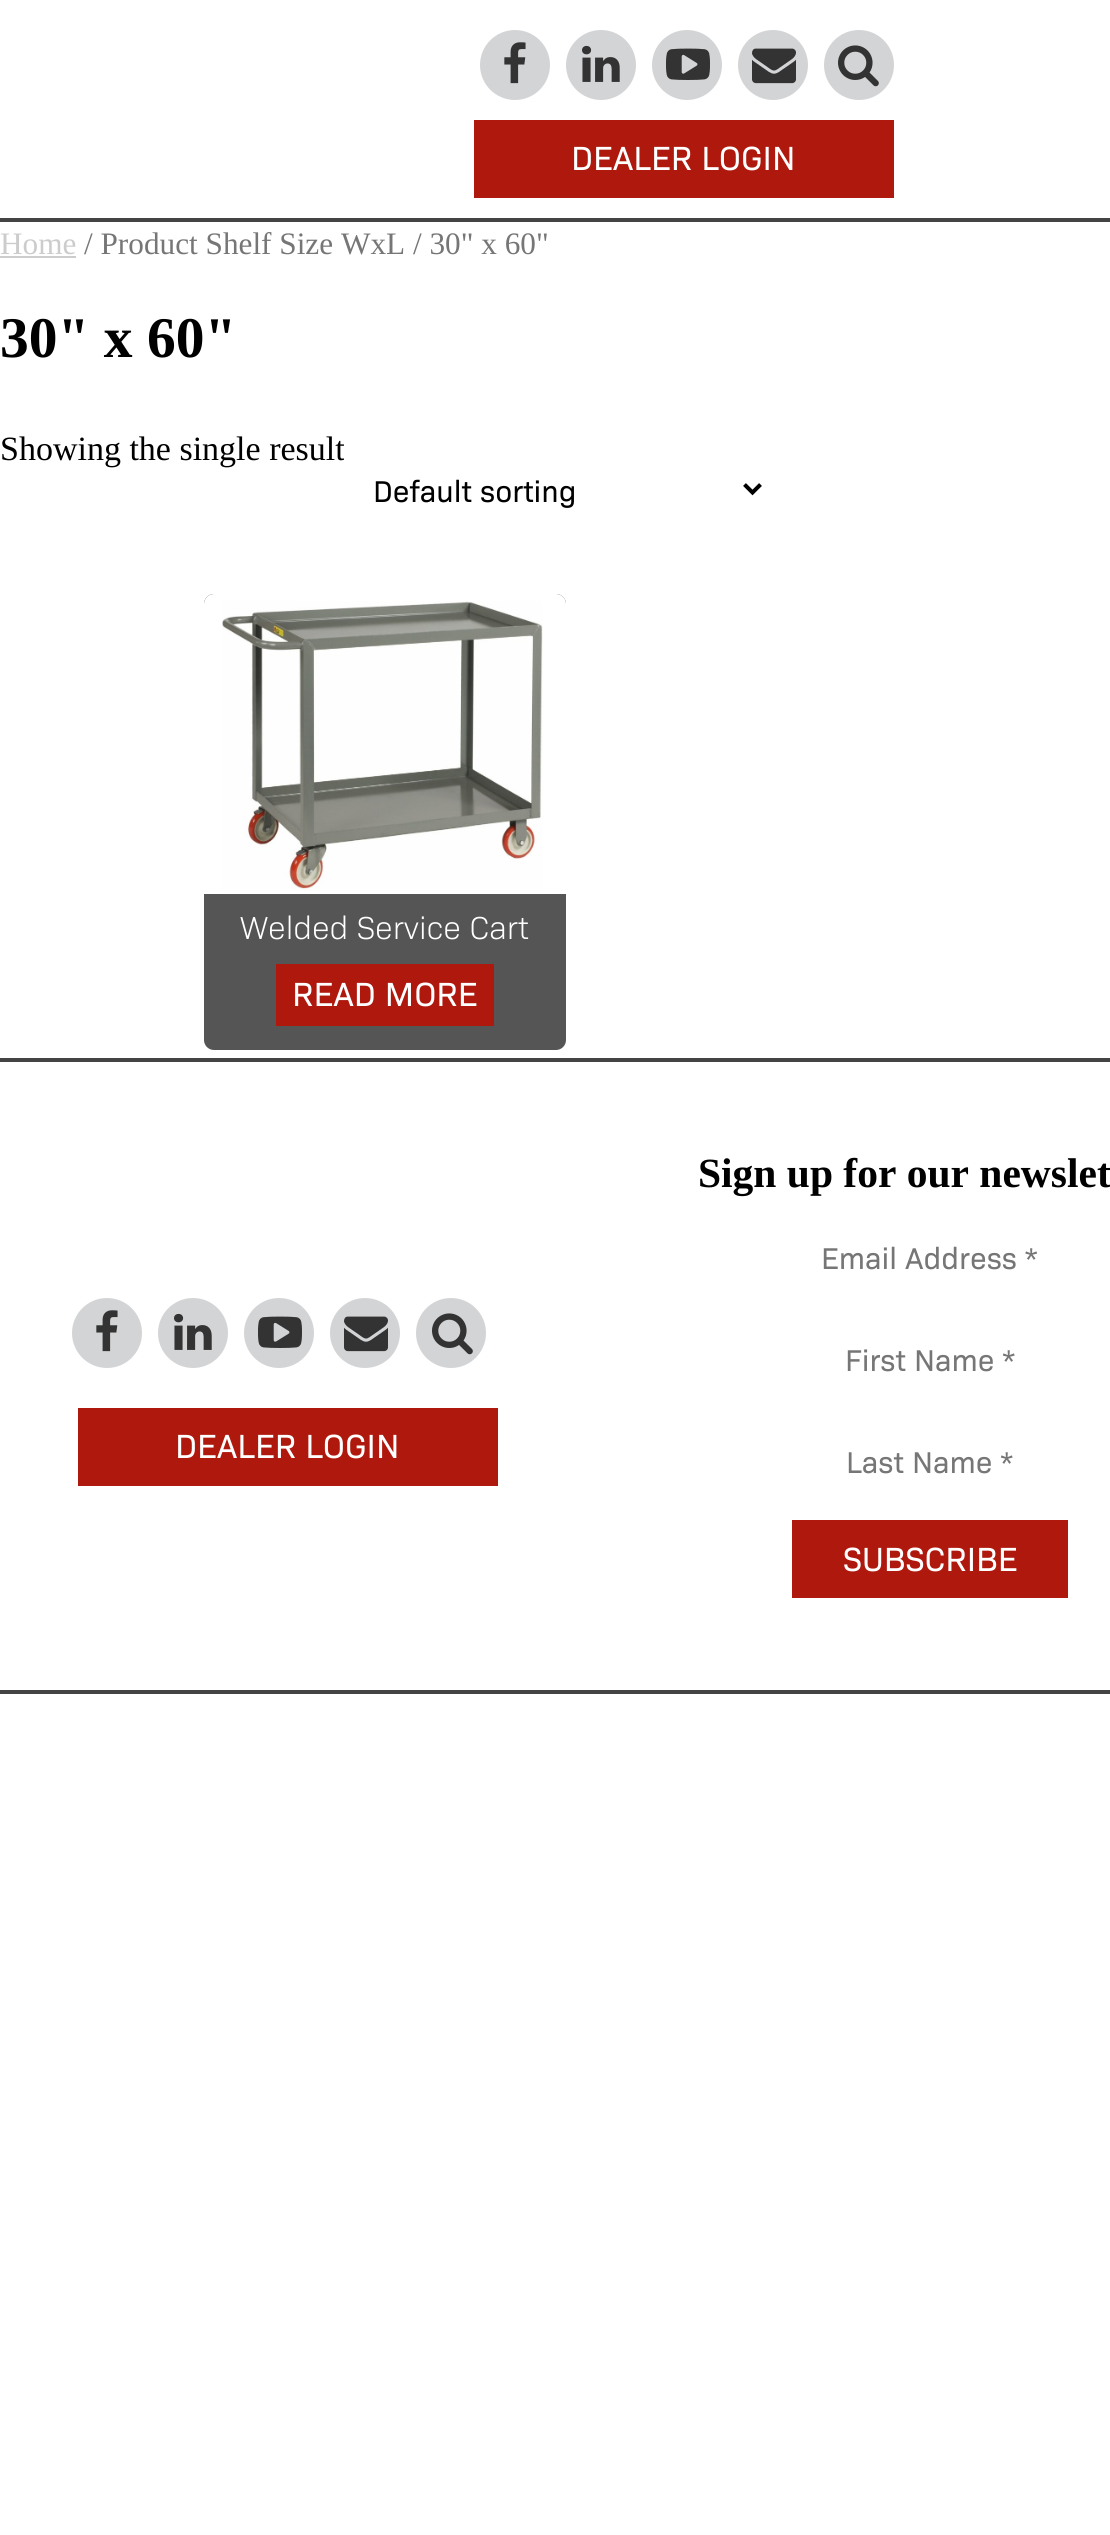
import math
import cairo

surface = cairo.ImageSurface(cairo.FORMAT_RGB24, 1110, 2535)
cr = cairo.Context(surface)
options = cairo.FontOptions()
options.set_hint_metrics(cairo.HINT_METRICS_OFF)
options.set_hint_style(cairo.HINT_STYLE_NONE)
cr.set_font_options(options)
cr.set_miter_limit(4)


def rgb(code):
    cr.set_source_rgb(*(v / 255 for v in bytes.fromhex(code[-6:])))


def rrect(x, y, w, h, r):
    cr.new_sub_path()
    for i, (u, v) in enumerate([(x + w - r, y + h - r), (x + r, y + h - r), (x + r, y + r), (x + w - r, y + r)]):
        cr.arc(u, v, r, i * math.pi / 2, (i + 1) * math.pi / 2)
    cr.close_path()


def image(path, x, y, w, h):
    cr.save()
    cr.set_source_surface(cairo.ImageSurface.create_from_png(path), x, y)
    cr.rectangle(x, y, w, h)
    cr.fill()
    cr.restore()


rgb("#ffffff")
cr.paint()
rgb("#d3d4d6")
cr.arc(515, 65, 35, 0, 2 * math.pi)
cr.fill()
image("img/1.png", 504, 42, 22, 42)
cr.arc(601, 65, 35, 0, 2 * math.pi)
cr.fill()
image("img/2.png", 582, 45, 38, 37)
cr.arc(687, 65, 35, 0, 2 * math.pi)
cr.fill()
image("img/3.png", 666, 48, 44, 32)
cr.arc(773, 65, 35, 0, 2 * math.pi)
cr.fill()
image("img/4.png", 752, 48, 44, 36)
cr.arc(859, 65, 35, 0, 2 * math.pi)
cr.fill()
image("img/5.png", 838, 45, 41, 42)
for x, y, w, h, color in [
    (474, 120, 420, 78, "#af180d"),
    (0, 218, 1110, 4, "#444444"),
    (0, 1058, 1110, 4, "#444444"),
    (0, 256, 76, 2, "#cccccc"),
]:
    rgb(color)
    cr.rectangle(x, y, w, h)
    cr.fill()
cr.new_path()
cr.move_to(744.5, 484.5)
cr.line_to(752.5, 492.5)
cr.line_to(760.5, 484.5)
rgb("#000000")
cr.set_line_width(4)
cr.stroke()
rgb("#555555")
rrect(204, 594, 362, 456, 10)
cr.fill()
rgb("#ffffff")
cr.new_path()
cr.move_to(214, 594)
cr.line_to(556, 594)
cr.curve_to(561.5, 594, 566, 598.5, 566, 604)
cr.line_to(566, 894)
cr.line_to(204, 894)
cr.line_to(204, 604)
cr.curve_to(204, 598.5, 208.5, 594, 214, 594)
cr.close_path()
cr.fill()
image("img/6.png", 222, 601, 321, 290)
rgb("#af180d")
cr.rectangle(276, 964, 218, 62)
cr.fill()
rgb("#444444")
cr.rectangle(0, 1690, 1110, 4)
cr.fill()
rgb("#d3d4d6")
cr.arc(107, 1333, 35, 0, 2 * math.pi)
cr.fill()
image("img/1.png", 96, 1310, 22, 42)
cr.arc(193, 1333, 35, 0, 2 * math.pi)
cr.fill()
image("img/2.png", 174, 1313, 38, 37)
cr.arc(279, 1333, 35, 0, 2 * math.pi)
cr.fill()
image("img/3.png", 258, 1316, 44, 32)
cr.arc(365, 1333, 35, 0, 2 * math.pi)
cr.fill()
image("img/4.png", 344, 1316, 44, 36)
cr.arc(451, 1333, 35, 0, 2 * math.pi)
cr.fill()
image("img/5.png", 432, 1313, 41, 42)
rgb("#af180d")
cr.rectangle(78, 1408, 420, 78)
cr.fill()
cr.rectangle(792, 1520, 276, 78)
cr.fill()
cr.select_font_face("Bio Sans")
cr.set_font_size(34)
rgb("#ffffff")
cr.move_to(571, 170)
cr.show_text("DEALER LOGIN")
cr.select_font_face("Liberation Serif")
cr.set_font_size(31.25)
rgb("#cccccc")
cr.move_to(0, 254)
cr.show_text("Home")
rgb("#767676")
cr.move_to(84, 254)
cr.show_text("/ Product Shelf Size WxL / 30\" x 60\"")
cr.select_font_face("Liberation Serif", cairo.FONT_SLANT_NORMAL, cairo.FONT_WEIGHT_BOLD)
cr.set_font_size(57.5)
rgb("#000000")
cr.move_to(0, 357)
cr.show_text("30\" x 60\"")
cr.select_font_face("Liberation Serif")
cr.set_font_size(34)
cr.move_to(0, 460)
cr.show_text("Showing the single result")
rgb("#ffffff")
cr.rectangle(344, 458, 1, 2)
cr.fill()
cr.select_font_face("Bio Sans")
cr.set_font_size(30.5)
rgb("#000000")
cr.move_to(373, 502)
cr.show_text("Default sorting")
cr.select_font_face("Bio Sans Light")
cr.set_font_size(32.25)
rgb("#ffffff")
cr.move_to(240, 939)
cr.show_text("Welded Service Cart")
cr.select_font_face("Bio Sans")
cr.set_font_size(34)
cr.move_to(292, 1006)
cr.show_text("READ MORE")
cr.move_to(175, 1458)
cr.show_text("DEALER LOGIN")
cr.select_font_face("Liberation Serif", cairo.FONT_SLANT_NORMAL, cairo.FONT_WEIGHT_BOLD)
cr.set_font_size(41.5)
rgb("#000000")
cr.move_to(698, 1187)
cr.show_text("Sign up for our newslet")
cr.select_font_face("Bio Sans")
cr.set_font_size(30.5)
rgb("#767676")
for x, y, s in [
    (821, 1269, "Email Address *"),
    (845, 1371, "First Name *"),
    (846, 1473, "Last Name *"),
]:
    cr.move_to(x, y)
    cr.show_text(s)
cr.set_font_size(34)
rgb("#ffffff")
cr.move_to(843, 1571)
cr.show_text("SUBSCRIBE")
surface.write_to_png("page.png")
